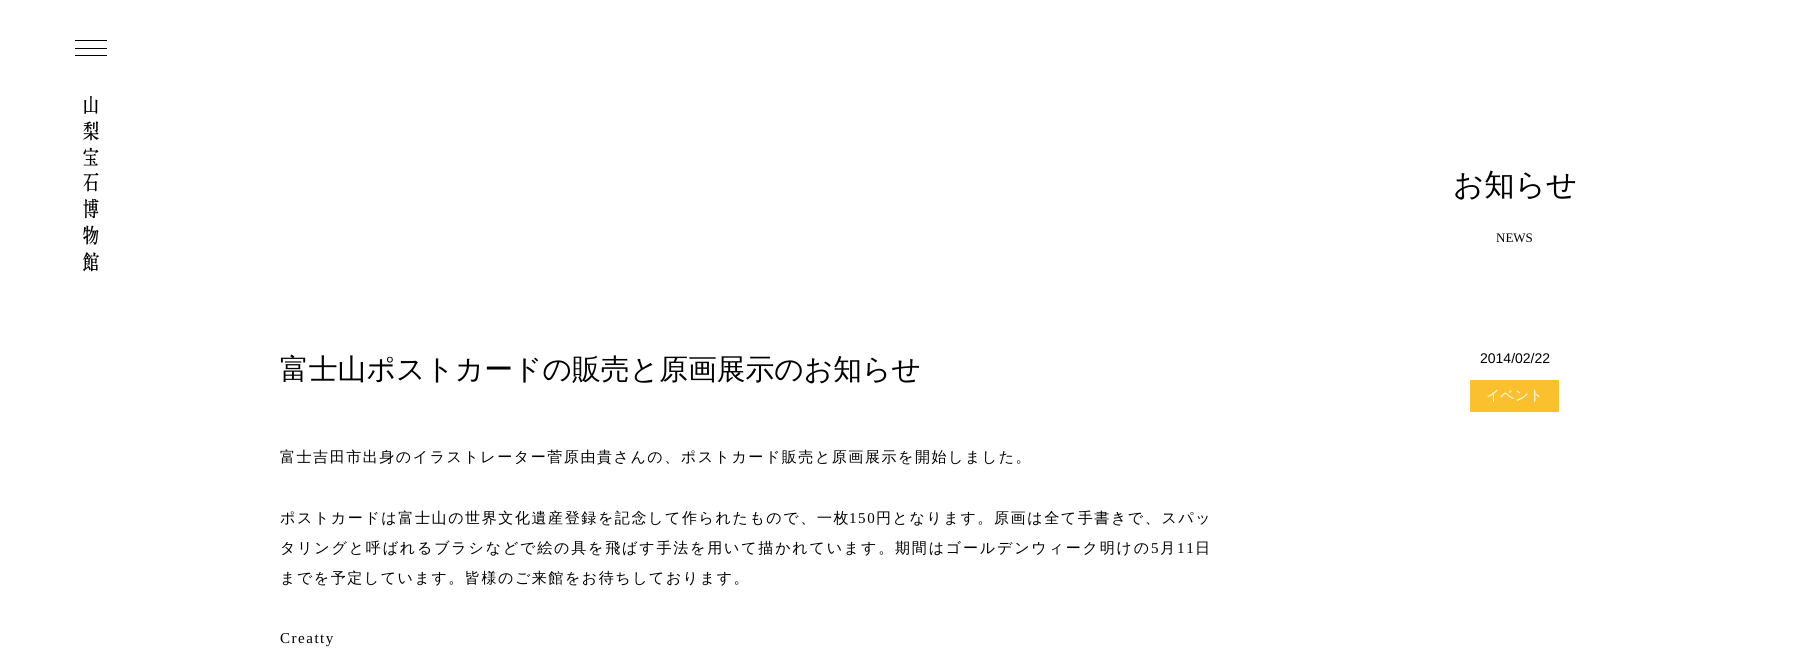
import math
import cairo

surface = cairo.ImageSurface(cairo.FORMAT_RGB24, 1817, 657)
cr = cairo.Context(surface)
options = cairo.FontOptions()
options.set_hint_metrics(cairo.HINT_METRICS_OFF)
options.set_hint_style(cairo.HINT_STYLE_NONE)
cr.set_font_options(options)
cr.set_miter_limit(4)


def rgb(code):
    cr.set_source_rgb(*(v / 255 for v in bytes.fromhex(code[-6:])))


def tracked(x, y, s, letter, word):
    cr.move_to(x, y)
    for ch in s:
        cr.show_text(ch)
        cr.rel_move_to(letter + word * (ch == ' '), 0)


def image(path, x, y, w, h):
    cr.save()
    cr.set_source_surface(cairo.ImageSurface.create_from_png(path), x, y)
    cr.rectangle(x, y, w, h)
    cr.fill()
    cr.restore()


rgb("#ffffff")
cr.paint()
for x, y, w, h, color in [
    (75, 40, 32, 1, "#000000"),
    (75, 48, 32, 1, "#000000"),
    (75, 55, 32, 1, "#000000"),
]:
    rgb(color)
    cr.rectangle(x, y, w, h)
    cr.fill()
image("img/1.png", 83, 96, 16, 176)
rgb("#fbc02d")
cr.rectangle(1470, 380, 89, 32)
cr.fill()
cr.select_font_face("WenQuanYi Zen Hei Medium")
cr.set_font_size(30.5)
rgb("#000000")
cr.move_to(1453, 195)
cr.show_text("お知らせ")
cr.select_font_face("Liberation Serif")
cr.set_font_size(13)
cr.move_to(1496, 242)
cr.show_text("NEWS")
cr.select_font_face("WenQuanYi Zen Hei Medium")
cr.set_font_size(28.8)
cr.move_to(280, 379)
cr.show_text("富士山ポストカードの販売と原画展示のお知らせ")
cr.set_font_size(15.05)
tracked(280, 462, "富士吉田市出身のイラストレーター菅原由貴さんの、ポストカード販売と原画展示を開始しました。", 1.5, 0)
tracked(280, 523, "ポストカードは富士山の世界文化遺産登録を記念して作られたもので、一枚", 1.55, 0)
cr.select_font_face("Liberation Serif")
tracked(849, 523, "150", 1.55, 0)
cr.select_font_face("WenQuanYi Zen Hei Medium")
tracked(876, 523, "円となります。原画は全て手書きで、スパッ", 1.55, 0)
tracked(280, 553, "タリングと呼ばれるブラシなどで絵の具を飛ばす手法を用いて描かれています。期間はゴールデンウィーク明けの", 1.77, 0)
cr.select_font_face("Liberation Serif")
tracked(1151, 553, "5", 1.77, 0)
cr.select_font_face("WenQuanYi Zen Hei Medium")
tracked(1160, 553, "月", 1.77, 0)
cr.select_font_face("Liberation Serif")
tracked(1177, 553, "11", 1.77, 0)
cr.select_font_face("WenQuanYi Zen Hei Medium")
tracked(1195, 553, "日", 1.77, 0)
tracked(280, 583, "までを予定しています。皆様のご来館をお待ちしております。", 1.5, 0)
cr.select_font_face("Liberation Serif")
tracked(280, 643, "Creatty", 1.5, 0)
cr.select_font_face("Liberation Sans")
cr.set_font_size(14)
cr.move_to(1480, 363)
cr.show_text("2014/02/22")
cr.select_font_face("WenQuanYi Zen Hei Medium")
rgb("#ffffff")
cr.move_to(1486, 400)
cr.show_text("イベント")
surface.write_to_png("page.png")
